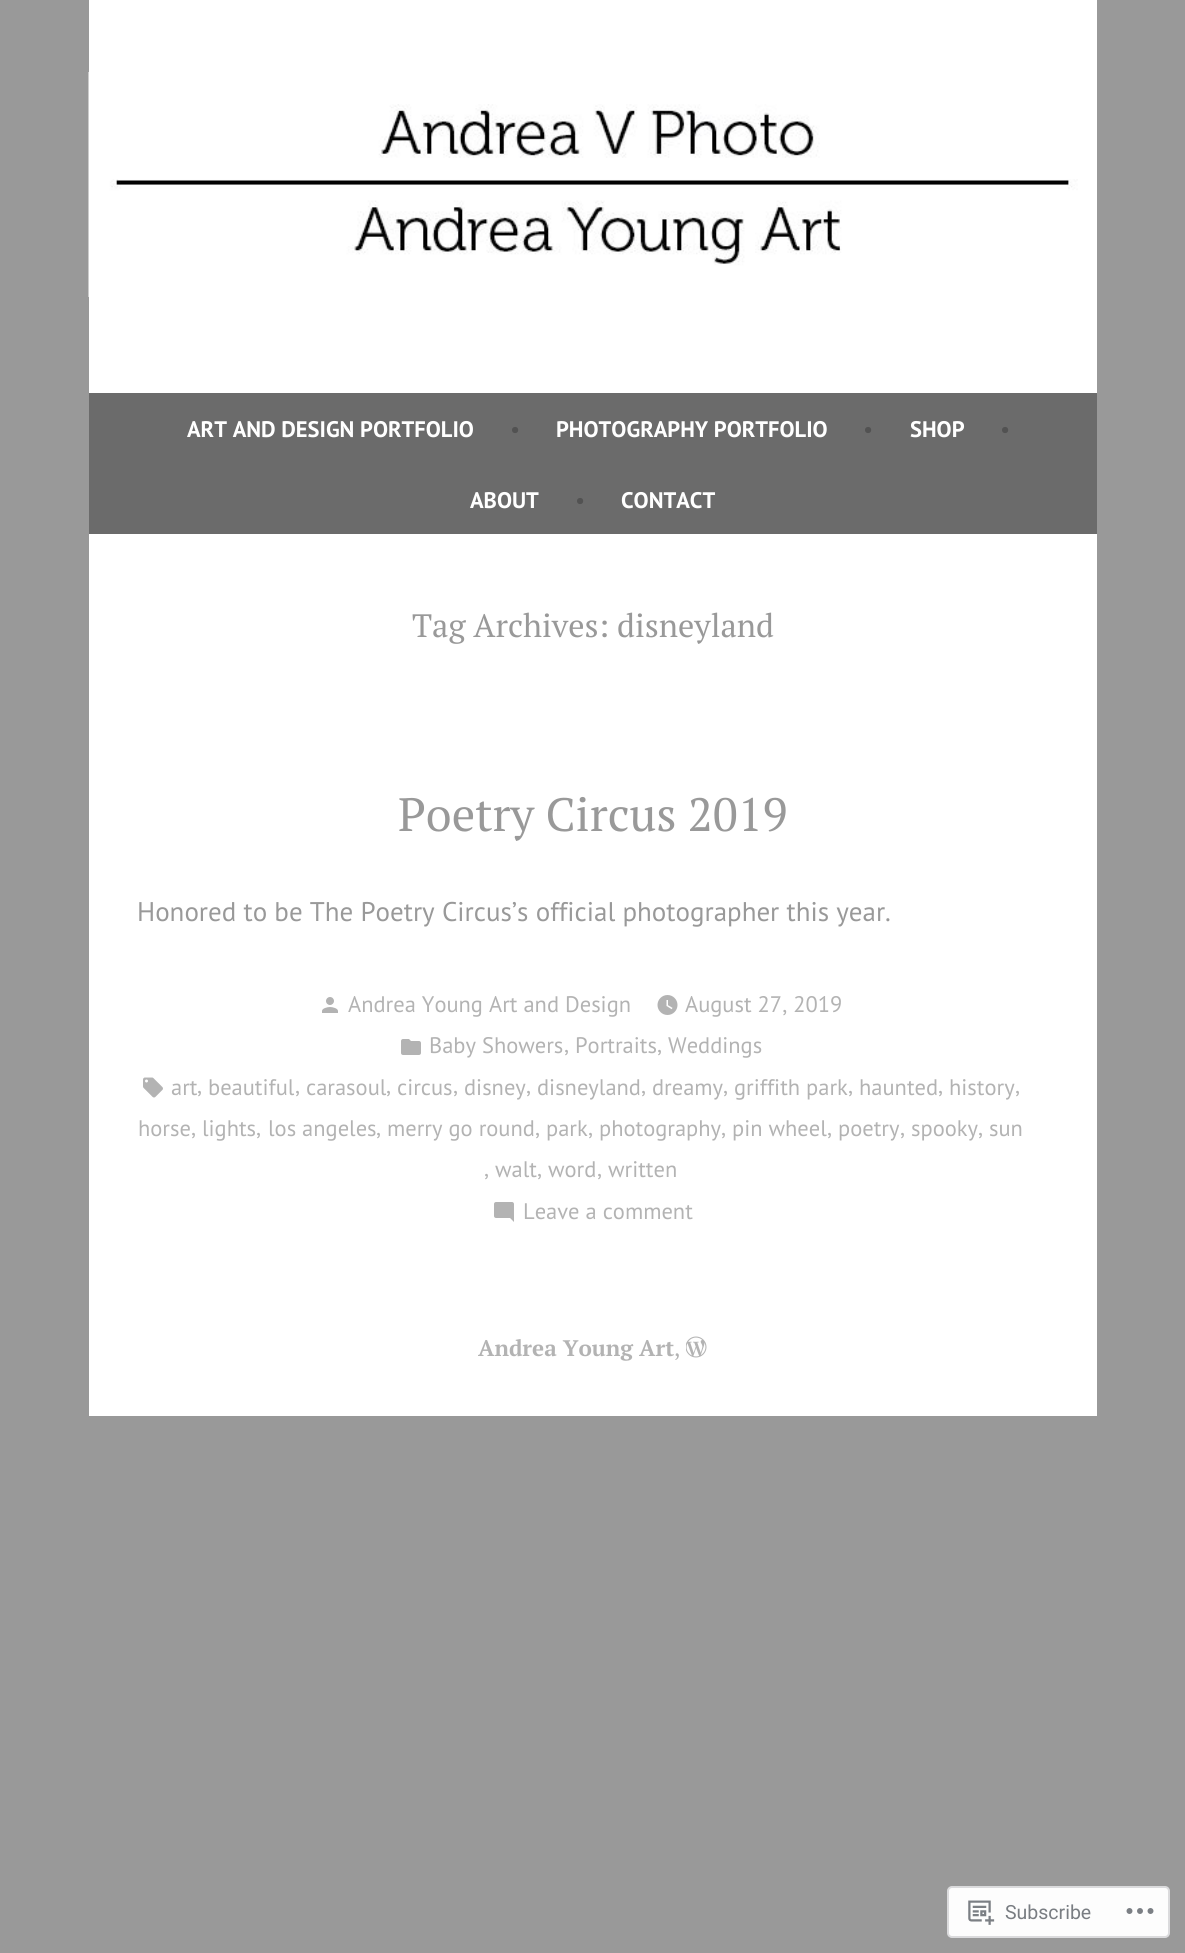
import math
import cairo

surface = cairo.ImageSurface(cairo.FORMAT_RGB24, 1185, 1953)
cr = cairo.Context(surface)
options = cairo.FontOptions()
options.set_hint_metrics(cairo.HINT_METRICS_OFF)
options.set_hint_style(cairo.HINT_STYLE_NONE)
cr.set_font_options(options)
cr.set_miter_limit(4)


def rgb(code):
    cr.set_source_rgb(*(v / 255 for v in bytes.fromhex(code[-6:])))


def rrect(x, y, w, h, r):
    cr.new_sub_path()
    for i, (u, v) in enumerate([(x + w - r, y + h - r), (x + r, y + h - r), (x + r, y + r), (x + w - r, y + r)]):
        cr.arc(u, v, r, i * math.pi / 2, (i + 1) * math.pi / 2)
    cr.close_path()


def image(path, x, y, w, h):
    cr.save()
    cr.set_source_surface(cairo.ImageSurface.create_from_png(path), x, y)
    cr.rectangle(x, y, w, h)
    cr.fill()
    cr.restore()


rgb("#999999")
cr.paint()
rgb("#ffffff")
cr.rectangle(89, 0, 1008, 1416)
cr.fill()
image("img/1.png", 88, 72, 990, 225)
rgb("#6b6b6b")
cr.rectangle(89, 393, 1008, 141)
cr.fill()
image("img/2.png", 322, 997, 16, 16)
image("img/3.png", 657, 995, 21, 20)
image("img/4.png", 401, 1039, 20, 16)
image("img/5.png", 143, 1077, 20, 21)
image("img/6.png", 494, 1202, 20, 20)
image("img/7.png", 686, 1336, 21, 22)
rgb("#fdfdfd")
rrect(948, 1887, 221, 50, 4)
cr.fill_preserve()
rgb("#dbdbdd")
cr.stroke()
image("img/8.png", 968, 1900, 27, 25)
image("img/9.png", 1126, 1908, 28, 6)
cr.select_font_face("PT Sans", cairo.FONT_SLANT_NORMAL, cairo.FONT_WEIGHT_BOLD)
cr.set_font_size(22.5)
rgb("#ffffff")
cr.move_to(187, 437)
cr.show_text("ART AND DESIGN PORTFOLIO")
cr.select_font_face("PT Sans")
rgb("#525252")
cr.move_to(510, 437)
cr.show_text("•")
cr.select_font_face("PT Sans", cairo.FONT_SLANT_NORMAL, cairo.FONT_WEIGHT_BOLD)
rgb("#ffffff")
cr.move_to(556, 437)
cr.show_text("PHOTOGRAPHY PORTFOLIO")
cr.select_font_face("PT Sans")
rgb("#525252")
cr.move_to(863, 437)
cr.show_text("•")
cr.select_font_face("PT Sans", cairo.FONT_SLANT_NORMAL, cairo.FONT_WEIGHT_BOLD)
rgb("#ffffff")
cr.move_to(910, 437)
cr.show_text("SHOP")
cr.select_font_face("PT Sans")
rgb("#525252")
cr.move_to(1000, 437)
cr.show_text("•")
cr.select_font_face("PT Sans", cairo.FONT_SLANT_NORMAL, cairo.FONT_WEIGHT_BOLD)
rgb("#ffffff")
cr.move_to(470, 508)
cr.show_text("ABOUT")
cr.select_font_face("PT Sans")
rgb("#525252")
cr.move_to(575, 508)
cr.show_text("•")
cr.select_font_face("PT Sans", cairo.FONT_SLANT_NORMAL, cairo.FONT_WEIGHT_BOLD)
rgb("#ffffff")
cr.move_to(621, 508)
cr.show_text("CONTACT")
cr.select_font_face("PT Serif")
cr.set_font_size(32.4)
rgb("#999999")
cr.move_to(412, 637)
cr.show_text("Tag Archives: disneyland")
cr.set_font_size(46.75)
cr.move_to(398, 831)
cr.show_text("Poetry Circus 2019")
cr.select_font_face("PT Sans")
cr.set_font_size(27)
cr.move_to(137, 921)
cr.show_text("Honored to be The Poetry Circus’s official photographer this year.")
cr.set_font_size(22.5)
rgb("#b3b3b3")
for x, y, s in [
    (348, 1012, "Andrea Young Art and Design"),
    (685, 1012, "August 27, 2019"),
    (429, 1053, "Baby Showers"),
    (564, 1052, ","),
    (575, 1053, "Portraits"),
    (657, 1052, ","),
    (668, 1053, "Weddings"),
    (171, 1095, "art"),
    (197, 1093, ","),
    (208, 1095, "beautiful"),
    (295, 1093, ","),
    (306, 1095, "carasoul"),
    (386, 1093, ","),
    (397, 1095, "circus"),
    (453, 1093, ","),
    (464, 1095, "disney"),
    (526, 1093, ","),
    (537, 1095, "disneyland"),
    (641, 1093, ","),
    (652, 1095, "dreamy"),
    (723, 1093, ","),
    (734, 1095, "griffith park"),
    (848, 1093, ","),
    (859, 1095, "haunted"),
    (938, 1093, ","),
    (949, 1095, "history"),
    (1015, 1093, ","),
    (138, 1136, "horse"),
    (191, 1135, ","),
    (202, 1136, "lights"),
    (256, 1135, ","),
    (268, 1136, "los angeles"),
    (376, 1135, ","),
    (387, 1136, "merry go round"),
    (535, 1135, ","),
    (546, 1136, "park"),
    (588, 1135, ","),
    (599, 1136, "photography"),
    (721, 1135, ","),
    (732, 1136, "pin wheel"),
    (827, 1135, ","),
    (838, 1136, "poetry"),
    (900, 1135, ","),
    (911, 1136, "spooky"),
    (978, 1135, ","),
    (989, 1136, "sun"),
    (484, 1176, ","),
    (495, 1177, "walt"),
    (537, 1176, ","),
    (548, 1177, "word"),
    (597, 1176, ","),
    (608, 1177, "written"),
    (523, 1219, "Leave a comment"),
]:
    cr.move_to(x, y)
    cr.show_text(s)
cr.select_font_face("PT Serif", cairo.FONT_SLANT_NORMAL, cairo.FONT_WEIGHT_BOLD)
cr.move_to(478, 1356)
cr.show_text("Andrea Young Art")
cr.select_font_face("PT Serif")
cr.move_to(674, 1356)
cr.show_text(",")
cr.select_font_face("Roboto")
cr.set_font_size(19.5)
rgb("#797d82")
cr.move_to(1005, 1919)
cr.show_text("Subscribe")
surface.write_to_png("page.png")
